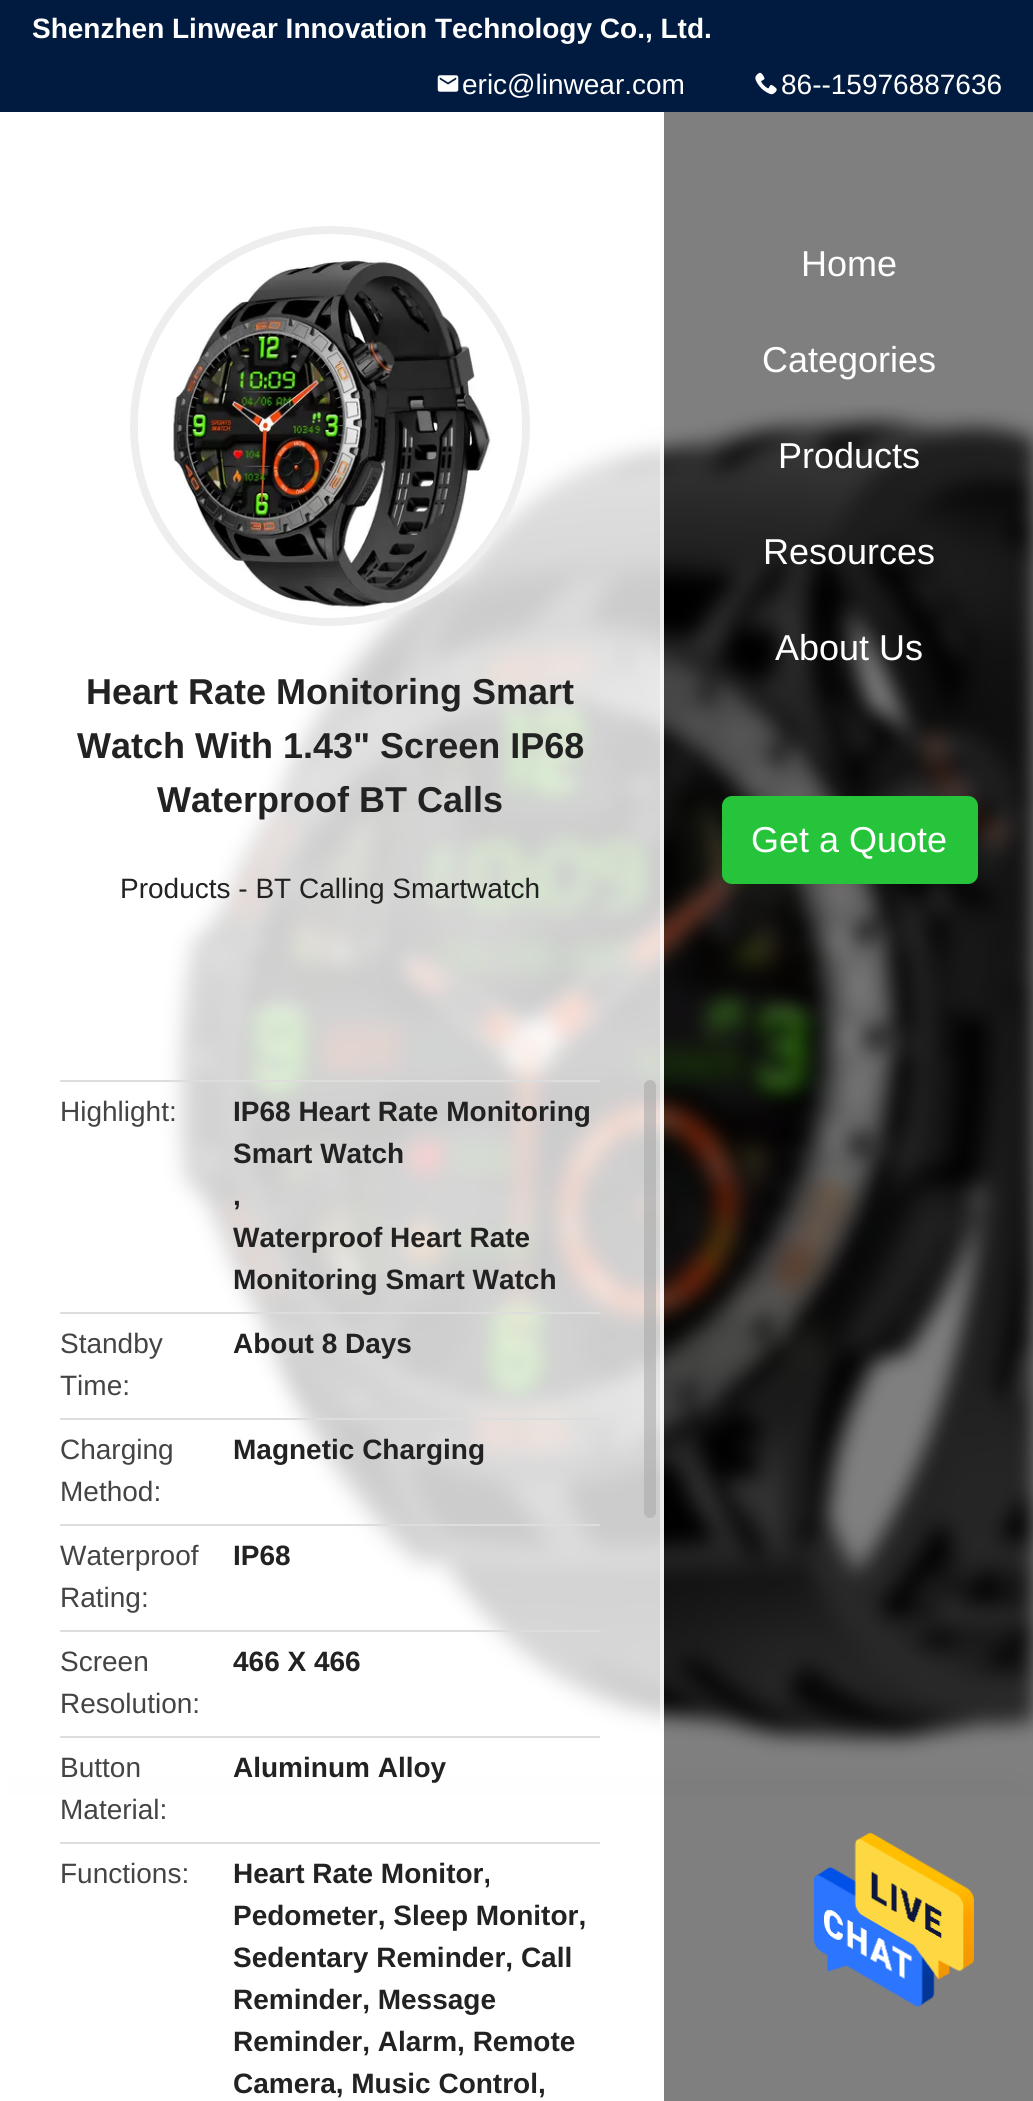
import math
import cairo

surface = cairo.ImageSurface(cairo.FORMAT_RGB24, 1033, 2101)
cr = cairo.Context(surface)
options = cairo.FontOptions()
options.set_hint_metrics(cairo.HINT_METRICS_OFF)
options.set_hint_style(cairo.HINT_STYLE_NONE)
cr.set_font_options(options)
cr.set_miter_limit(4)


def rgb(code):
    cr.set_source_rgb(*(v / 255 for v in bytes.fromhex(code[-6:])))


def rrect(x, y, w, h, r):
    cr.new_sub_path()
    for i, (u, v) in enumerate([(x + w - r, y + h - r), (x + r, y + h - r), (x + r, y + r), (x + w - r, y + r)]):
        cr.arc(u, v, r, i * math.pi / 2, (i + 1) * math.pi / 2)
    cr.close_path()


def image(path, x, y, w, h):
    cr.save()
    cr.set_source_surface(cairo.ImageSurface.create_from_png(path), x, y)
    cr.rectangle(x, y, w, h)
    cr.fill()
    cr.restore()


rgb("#ffffff")
cr.paint()
rgb("#001b3f")
cr.rectangle(0, 0, 1033, 112)
cr.fill()
image("img/1.png", 437, 75, 22, 17)
image("img/2.png", 755, 72, 22, 23)
image("img/3.png", 6, 404, 1027, 1392)
cr.set_source_rgba(0, 0, 0, 0.5)
cr.rectangle(664, 112, 369, 1989)
cr.fill()
rgb("#26c43a")
rrect(722, 796, 256, 88, 10)
cr.fill()
cr.set_source_rgba(1, 1, 1, 0.8)
cr.rectangle(6, 430, 658, 1366)
cr.fill()
cr.set_source_rgba(1, 1, 1, 0.6)
cr.rectangle(660, 438, 4, 1290)
cr.fill()
cr.arc(330, 426, 196, 0, 2 * math.pi)
rgb("#eeeeee")
cr.set_line_width(8)
cr.stroke()
image("img/4.png", 138, 235, 384, 378)
for x, y, w, h, color in [
    (60, 1080, 540, 2, "#dddddd"),
    (60, 1312, 540, 2, "#dddddd"),
    (60, 1418, 540, 2, "#dddddd"),
    (60, 1524, 540, 2, "#dddddd"),
    (60, 1630, 540, 2, "#dddddd"),
    (60, 1736, 540, 2, "#dddddd"),
    (60, 1842, 540, 2, "#dddddd"),
]:
    rgb(color)
    cr.rectangle(x, y, w, h)
    cr.fill()
cr.set_source_rgba(0.667, 0.667, 0.667, 0.6)
rrect(644, 1080, 12, 438, 6)
cr.fill()
image("img/5.png", 814, 1832, 160, 175)
cr.select_font_face("Liberation Sans", cairo.FONT_SLANT_NORMAL, cairo.FONT_WEIGHT_BOLD)
cr.set_font_size(28)
rgb("#ffffff")
cr.move_to(32, 38)
cr.show_text("Shenzhen Linwear Innovation Technology Co., Ltd.")
cr.select_font_face("Liberation Sans")
cr.move_to(462, 94)
cr.show_text("eric@linwear.com")
cr.move_to(781, 94)
cr.show_text("86--15976887636")
cr.set_font_size(36)
for x, y, s in [
    (801, 276, "Home"),
    (762, 372, "Categories"),
    (778, 468, "Products"),
    (763, 564, "Resources"),
    (775, 660, "About Us"),
    (751, 852, "Get a Quote"),
]:
    cr.move_to(x, y)
    cr.show_text(s)
cr.select_font_face("Liberation Sans", cairo.FONT_SLANT_NORMAL, cairo.FONT_WEIGHT_BOLD)
rgb("#222222")
for x, y, s in [
    (86, 704, "Heart Rate Monitoring Smart"),
    (77, 758, "Watch With 1.43\" Screen IP68"),
    (157, 812, "Waterproof BT Calls"),
]:
    cr.move_to(x, y)
    cr.show_text(s)
cr.select_font_face("Liberation Sans")
cr.set_font_size(28)
cr.move_to(120, 898)
cr.show_text("Products - BT Calling Smartwatch")
rgb("#444444")
cr.move_to(60, 1121)
cr.show_text("Highlight:")
cr.select_font_face("Liberation Sans", cairo.FONT_SLANT_NORMAL, cairo.FONT_WEIGHT_BOLD)
rgb("#222222")
for x, y, s in [
    (233, 1121, "IP68 Heart Rate Monitoring"),
    (233, 1163, "Smart Watch"),
    (233, 1205, ","),
    (233, 1247, "Waterproof Heart Rate"),
    (233, 1289, "Monitoring Smart Watch"),
]:
    cr.move_to(x, y)
    cr.show_text(s)
cr.select_font_face("Liberation Sans")
rgb("#444444")
cr.move_to(60, 1353)
cr.show_text("Standby")
cr.move_to(60, 1395)
cr.show_text("Time:")
cr.select_font_face("Liberation Sans", cairo.FONT_SLANT_NORMAL, cairo.FONT_WEIGHT_BOLD)
rgb("#222222")
cr.move_to(233, 1353)
cr.show_text("About 8 Days")
cr.select_font_face("Liberation Sans")
rgb("#444444")
cr.move_to(60, 1459)
cr.show_text("Charging")
cr.move_to(60, 1501)
cr.show_text("Method:")
cr.select_font_face("Liberation Sans", cairo.FONT_SLANT_NORMAL, cairo.FONT_WEIGHT_BOLD)
rgb("#222222")
cr.move_to(233, 1459)
cr.show_text("Magnetic Charging")
cr.select_font_face("Liberation Sans")
rgb("#444444")
cr.move_to(60, 1565)
cr.show_text("Waterproof")
cr.move_to(60, 1607)
cr.show_text("Rating:")
cr.select_font_face("Liberation Sans", cairo.FONT_SLANT_NORMAL, cairo.FONT_WEIGHT_BOLD)
rgb("#222222")
cr.move_to(233, 1565)
cr.show_text("IP68")
cr.select_font_face("Liberation Sans")
rgb("#444444")
cr.move_to(60, 1671)
cr.show_text("Screen")
cr.move_to(60, 1713)
cr.show_text("Resolution:")
cr.select_font_face("Liberation Sans", cairo.FONT_SLANT_NORMAL, cairo.FONT_WEIGHT_BOLD)
rgb("#222222")
cr.move_to(233, 1671)
cr.show_text("466 X 466")
cr.select_font_face("Liberation Sans")
rgb("#444444")
cr.move_to(60, 1777)
cr.show_text("Button")
cr.move_to(60, 1819)
cr.show_text("Material:")
cr.select_font_face("Liberation Sans", cairo.FONT_SLANT_NORMAL, cairo.FONT_WEIGHT_BOLD)
rgb("#222222")
cr.move_to(233, 1777)
cr.show_text("Aluminum Alloy")
cr.select_font_face("Liberation Sans")
rgb("#444444")
cr.move_to(60, 1883)
cr.show_text("Functions:")
cr.select_font_face("Liberation Sans", cairo.FONT_SLANT_NORMAL, cairo.FONT_WEIGHT_BOLD)
rgb("#222222")
for x, y, s in [
    (233, 1883, "Heart Rate Monitor,"),
    (233, 1925, "Pedometer, Sleep Monitor,"),
    (233, 1967, "Sedentary Reminder, Call"),
    (233, 2009, "Reminder, Message"),
    (233, 2051, "Reminder, Alarm, Remote"),
    (233, 2093, "Camera, Music Control,"),
]:
    cr.move_to(x, y)
    cr.show_text(s)
surface.write_to_png("page.png")
